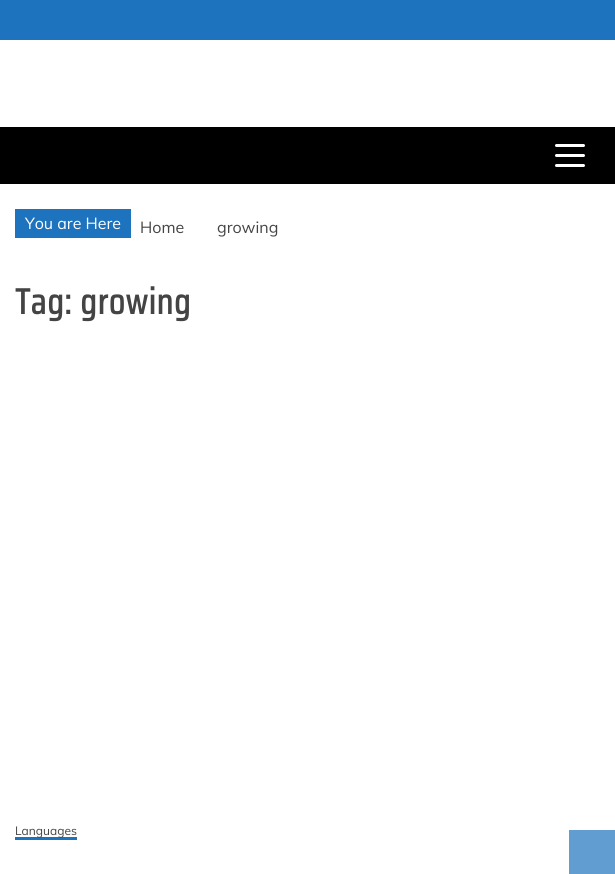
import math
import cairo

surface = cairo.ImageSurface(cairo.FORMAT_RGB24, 615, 874)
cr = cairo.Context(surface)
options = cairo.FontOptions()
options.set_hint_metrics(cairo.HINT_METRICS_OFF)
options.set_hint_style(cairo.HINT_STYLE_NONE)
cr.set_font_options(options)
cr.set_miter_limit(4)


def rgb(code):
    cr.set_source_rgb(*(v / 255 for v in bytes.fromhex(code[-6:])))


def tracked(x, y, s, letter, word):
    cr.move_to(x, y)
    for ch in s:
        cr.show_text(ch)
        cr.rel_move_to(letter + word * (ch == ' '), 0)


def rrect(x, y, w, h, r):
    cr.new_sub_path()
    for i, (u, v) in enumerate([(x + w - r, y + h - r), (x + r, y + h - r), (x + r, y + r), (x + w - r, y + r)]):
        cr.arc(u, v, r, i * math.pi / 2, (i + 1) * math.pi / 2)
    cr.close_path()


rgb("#ffffff")
cr.paint()
rgb("#1e73be")
cr.rectangle(0, 0, 615, 40)
cr.fill()
rgb("#000000")
cr.rectangle(0, 127, 615, 57)
cr.fill()
rgb("#ffffff")
rrect(555, 144, 30, 3, 1.5)
cr.fill()
rrect(555, 154, 30, 3, 1.5)
cr.fill()
rrect(555, 164, 30, 3, 1.5)
cr.fill()
for x, y, w, h, color in [
    (15, 209, 116, 29, "#1e73be"),
    (15, 837, 62, 3, "#1e73be"),
    (569, 830, 46, 44, "#629dd2"),
]:
    rgb(color)
    cr.rectangle(x, y, w, h)
    cr.fill()
cr.select_font_face("Muli")
cr.set_font_size(16)
rgb("#ffffff")
cr.move_to(25, 229)
cr.show_text("You are Here")
rgb("#444444")
cr.move_to(140, 233)
cr.show_text("Home")
cr.move_to(217, 233)
cr.show_text("growing")
cr.select_font_face("Saira Condensed", cairo.FONT_SLANT_NORMAL, cairo.FONT_WEIGHT_BOLD)
cr.set_font_size(36)
tracked(15, 314, "Tag: growing", 1, 0)
cr.select_font_face("Muli")
cr.set_font_size(12)
cr.move_to(15, 835)
cr.show_text("Languages")
surface.write_to_png("page.png")
